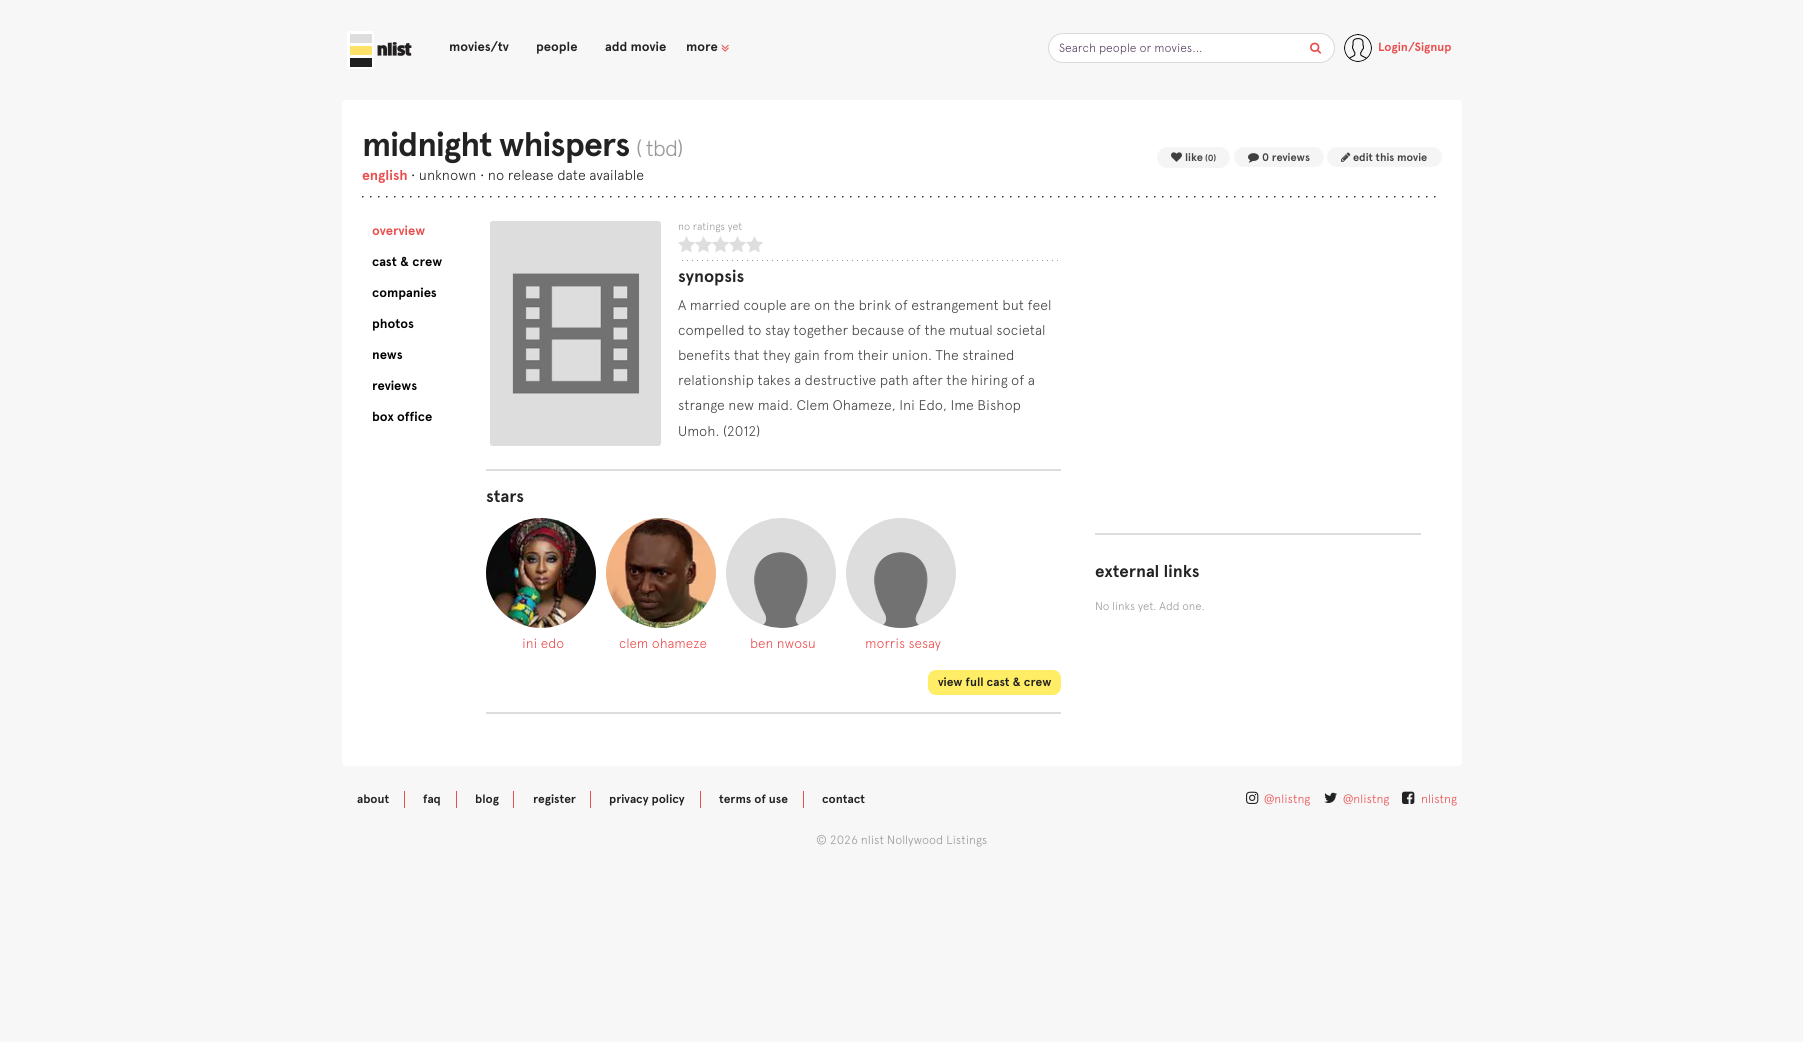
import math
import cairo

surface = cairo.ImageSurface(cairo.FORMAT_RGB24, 1803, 1042)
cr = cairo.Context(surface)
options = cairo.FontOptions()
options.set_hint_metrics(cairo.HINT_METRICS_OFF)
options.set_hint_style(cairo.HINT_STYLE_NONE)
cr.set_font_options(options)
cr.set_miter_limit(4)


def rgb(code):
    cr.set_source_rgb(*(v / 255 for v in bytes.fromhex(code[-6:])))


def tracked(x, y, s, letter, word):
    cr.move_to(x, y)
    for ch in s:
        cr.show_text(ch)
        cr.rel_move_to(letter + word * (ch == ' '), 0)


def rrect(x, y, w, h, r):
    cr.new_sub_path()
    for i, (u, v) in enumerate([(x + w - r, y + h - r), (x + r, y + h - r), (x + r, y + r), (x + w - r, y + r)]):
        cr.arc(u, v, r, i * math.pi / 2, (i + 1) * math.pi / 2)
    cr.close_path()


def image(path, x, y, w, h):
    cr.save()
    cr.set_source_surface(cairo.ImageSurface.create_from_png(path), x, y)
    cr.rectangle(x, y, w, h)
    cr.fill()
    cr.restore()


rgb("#f7f7f7")
cr.paint()
image("img/1.png", 347, 31, 65, 38)
image("img/2.png", 721, 44, 8, 8)
rgb("#ffffff")
rrect(1048.5, 33.5, 286, 29, 14.5)
cr.fill_preserve()
rgb("#dadada")
cr.set_line_width(1)
cr.stroke()
image("img/3.png", 1310, 42, 12, 12)
image("img/4.png", 1344, 34, 28, 28)
rgb("#ffffff")
rrect(342, 100, 1120, 666, 4)
cr.fill()
image("img/5.png", 362, 196, 1074, 2)
rgb("#f5f5f5")
rrect(1157, 147, 73, 21, 10.5)
cr.fill()
image("img/6.png", 1171, 152, 11, 10)
rrect(1234, 147, 90, 20, 10)
cr.fill()
image("img/7.png", 1248, 153, 11, 10)
rrect(1327, 147, 115, 20, 10)
cr.fill()
image("img/8.png", 1341, 152, 10, 10)
image("img/9.png", 490, 221, 171, 225)
image("img/10.png", 682, 260, 376, 1)
image("img/11.png", 678, 236, 85, 17)
rgb("#dddddd")
cr.rectangle(486, 469, 575, 2)
cr.fill()
image("img/12.png", 486, 518, 110, 110)
image("img/13.png", 606, 518, 110, 110)
image("img/14.png", 726, 518, 110, 110)
image("img/15.png", 846, 518, 110, 110)
rgb("#ffed65")
rrect(928, 670, 133, 25, 8)
cr.fill()
for x, y, w, h, color in [
    (486, 712, 575, 2, "#dddddd"),
    (1095, 533, 326, 2, "#dddddd"),
    (404, 791, 1, 17, "#ea4f4f"),
    (456, 791, 1, 17, "#ea4f4f"),
    (513, 791, 1, 17, "#ea4f4f"),
    (590, 791, 1, 17, "#ea4f4f"),
    (700, 791, 1, 17, "#ea4f4f"),
    (803, 791, 1, 17, "#ea4f4f"),
]:
    rgb(color)
    cr.rectangle(x, y, w, h)
    cr.fill()
image("img/16.png", 1246, 791, 13, 13)
image("img/17.png", 1324, 792, 13, 11)
image("img/18.png", 1402, 791, 13, 13)
cr.select_font_face("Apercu", cairo.FONT_SLANT_NORMAL, cairo.FONT_WEIGHT_BOLD)
cr.set_font_size(13)
rgb("#222222")
for x, y, s in [
    (449, 51, "movies/tv"),
    (536, 51, "people"),
    (605, 51, "add movie"),
    (686, 51, "more"),
]:
    cr.move_to(x, y)
    cr.show_text(s)
cr.select_font_face("Apercu Light")
cr.set_font_size(12)
rgb("#5c4365")
cr.move_to(1059, 52)
cr.show_text("Search people or movies...")
cr.select_font_face("Apercu", cairo.FONT_SLANT_NORMAL, cairo.FONT_WEIGHT_BOLD)
rgb("#ea4f4f")
cr.move_to(1378, 51)
cr.show_text("Login/Signup")
cr.set_font_size(33.75)
rgb("#222222")
tracked(362, 156, "midnight whispers", -1, 0)
cr.select_font_face("Apercu Light")
cr.set_font_size(22)
rgb("#999999")
tracked(636, 156, "( tbd)", -1, 0)
cr.select_font_face("Apercu", cairo.FONT_SLANT_NORMAL, cairo.FONT_WEIGHT_BOLD)
cr.set_font_size(14.1)
rgb("#ea4f4f")
cr.move_to(362, 180)
cr.show_text("english")
cr.select_font_face("Apercu Light")
rgb("#222222")
cr.move_to(411, 180)
cr.show_text("• unknown • no release date available")
cr.select_font_face("Apercu", cairo.FONT_SLANT_NORMAL, cairo.FONT_WEIGHT_BOLD)
cr.set_font_size(11)
rgb("#444444")
cr.move_to(1185, 161)
cr.show_text("like")
cr.set_font_size(9)
cr.move_to(1205, 161)
cr.show_text("(0)")
cr.set_font_size(11)
cr.move_to(1262, 161)
cr.show_text("0 reviews")
cr.move_to(1353, 161)
cr.show_text("edit this movie")
cr.set_font_size(13)
rgb("#ea4f4f")
cr.move_to(372, 235)
cr.show_text("overview")
rgb("#000000")
for x, y, s in [
    (372, 266, "cast & crew"),
    (372, 297, "companies"),
    (372, 328, "photos"),
    (372, 359, "news"),
    (372, 390, "reviews"),
    (372, 421, "box office"),
]:
    cr.move_to(x, y)
    cr.show_text(s)
cr.select_font_face("Apercu Light")
cr.set_font_size(10.5)
rgb("#999999")
cr.move_to(678, 230)
cr.show_text("no ratings yet")
cr.select_font_face("Apercu", cairo.FONT_SLANT_NORMAL, cairo.FONT_WEIGHT_BOLD)
cr.set_font_size(17)
rgb("#222222")
cr.move_to(678, 282)
cr.show_text("synopsis")
cr.select_font_face("Apercu Light")
cr.set_font_size(14)
rgb("#444444")
for x, y, s in [
    (678, 310, "A married couple are on the brink of estrangement but feel"),
    (678, 335, "compelled to stay together because of the mutual societal"),
    (678, 360, "benefits that they gain from their union. The strained"),
    (678, 385, "relationship takes a destructive path after the hiring of a"),
    (678, 410, "strange new maid. Clem Ohameze, Ini Edo, Ime Bishop"),
    (678, 436, "Umoh. (2012)"),
]:
    cr.move_to(x, y)
    cr.show_text(s)
cr.select_font_face("Apercu", cairo.FONT_SLANT_NORMAL, cairo.FONT_WEIGHT_BOLD)
cr.set_font_size(17)
rgb("#222222")
cr.move_to(486, 502)
cr.show_text("stars")
cr.select_font_face("Apercu Light")
cr.set_font_size(13.5)
rgb("#ea4f4f")
for x, y, s in [
    (522, 648, "ini edo"),
    (619, 648, "clem ohameze"),
    (750, 648, "ben nwosu"),
    (865, 648, "morris sesay"),
]:
    cr.move_to(x, y)
    cr.show_text(s)
cr.select_font_face("Apercu", cairo.FONT_SLANT_NORMAL, cairo.FONT_WEIGHT_BOLD)
cr.set_font_size(12)
rgb("#222222")
cr.move_to(938, 686)
cr.show_text("view full cast & crew")
cr.set_font_size(17)
cr.move_to(1095, 577)
cr.show_text("external links")
cr.select_font_face("Apercu Light")
cr.set_font_size(11.25)
rgb("#999999")
cr.move_to(1095, 610)
cr.show_text("No links yet. Add one.")
cr.select_font_face("Apercu", cairo.FONT_SLANT_NORMAL, cairo.FONT_WEIGHT_BOLD)
cr.set_font_size(12)
rgb("#222222")
for x, y, s in [
    (357, 803, "about"),
    (423, 803, "faq"),
    (475, 803, "blog"),
    (533, 803, "register"),
    (609, 803, "privacy policy"),
    (719, 803, "terms of use"),
    (822, 803, "contact"),
]:
    cr.move_to(x, y)
    cr.show_text(s)
cr.select_font_face("Apercu Light")
rgb("#ea4f4f")
for x, y, s in [
    (1264, 803, "@nlistng"),
    (1343, 803, "@nlistng"),
    (1421, 803, "nlistng"),
]:
    cr.move_to(x, y)
    cr.show_text(s)
rgb("#999999")
cr.move_to(816, 844)
cr.show_text("© 2026 nlist Nollywood Listings")
surface.write_to_png("page.png")
